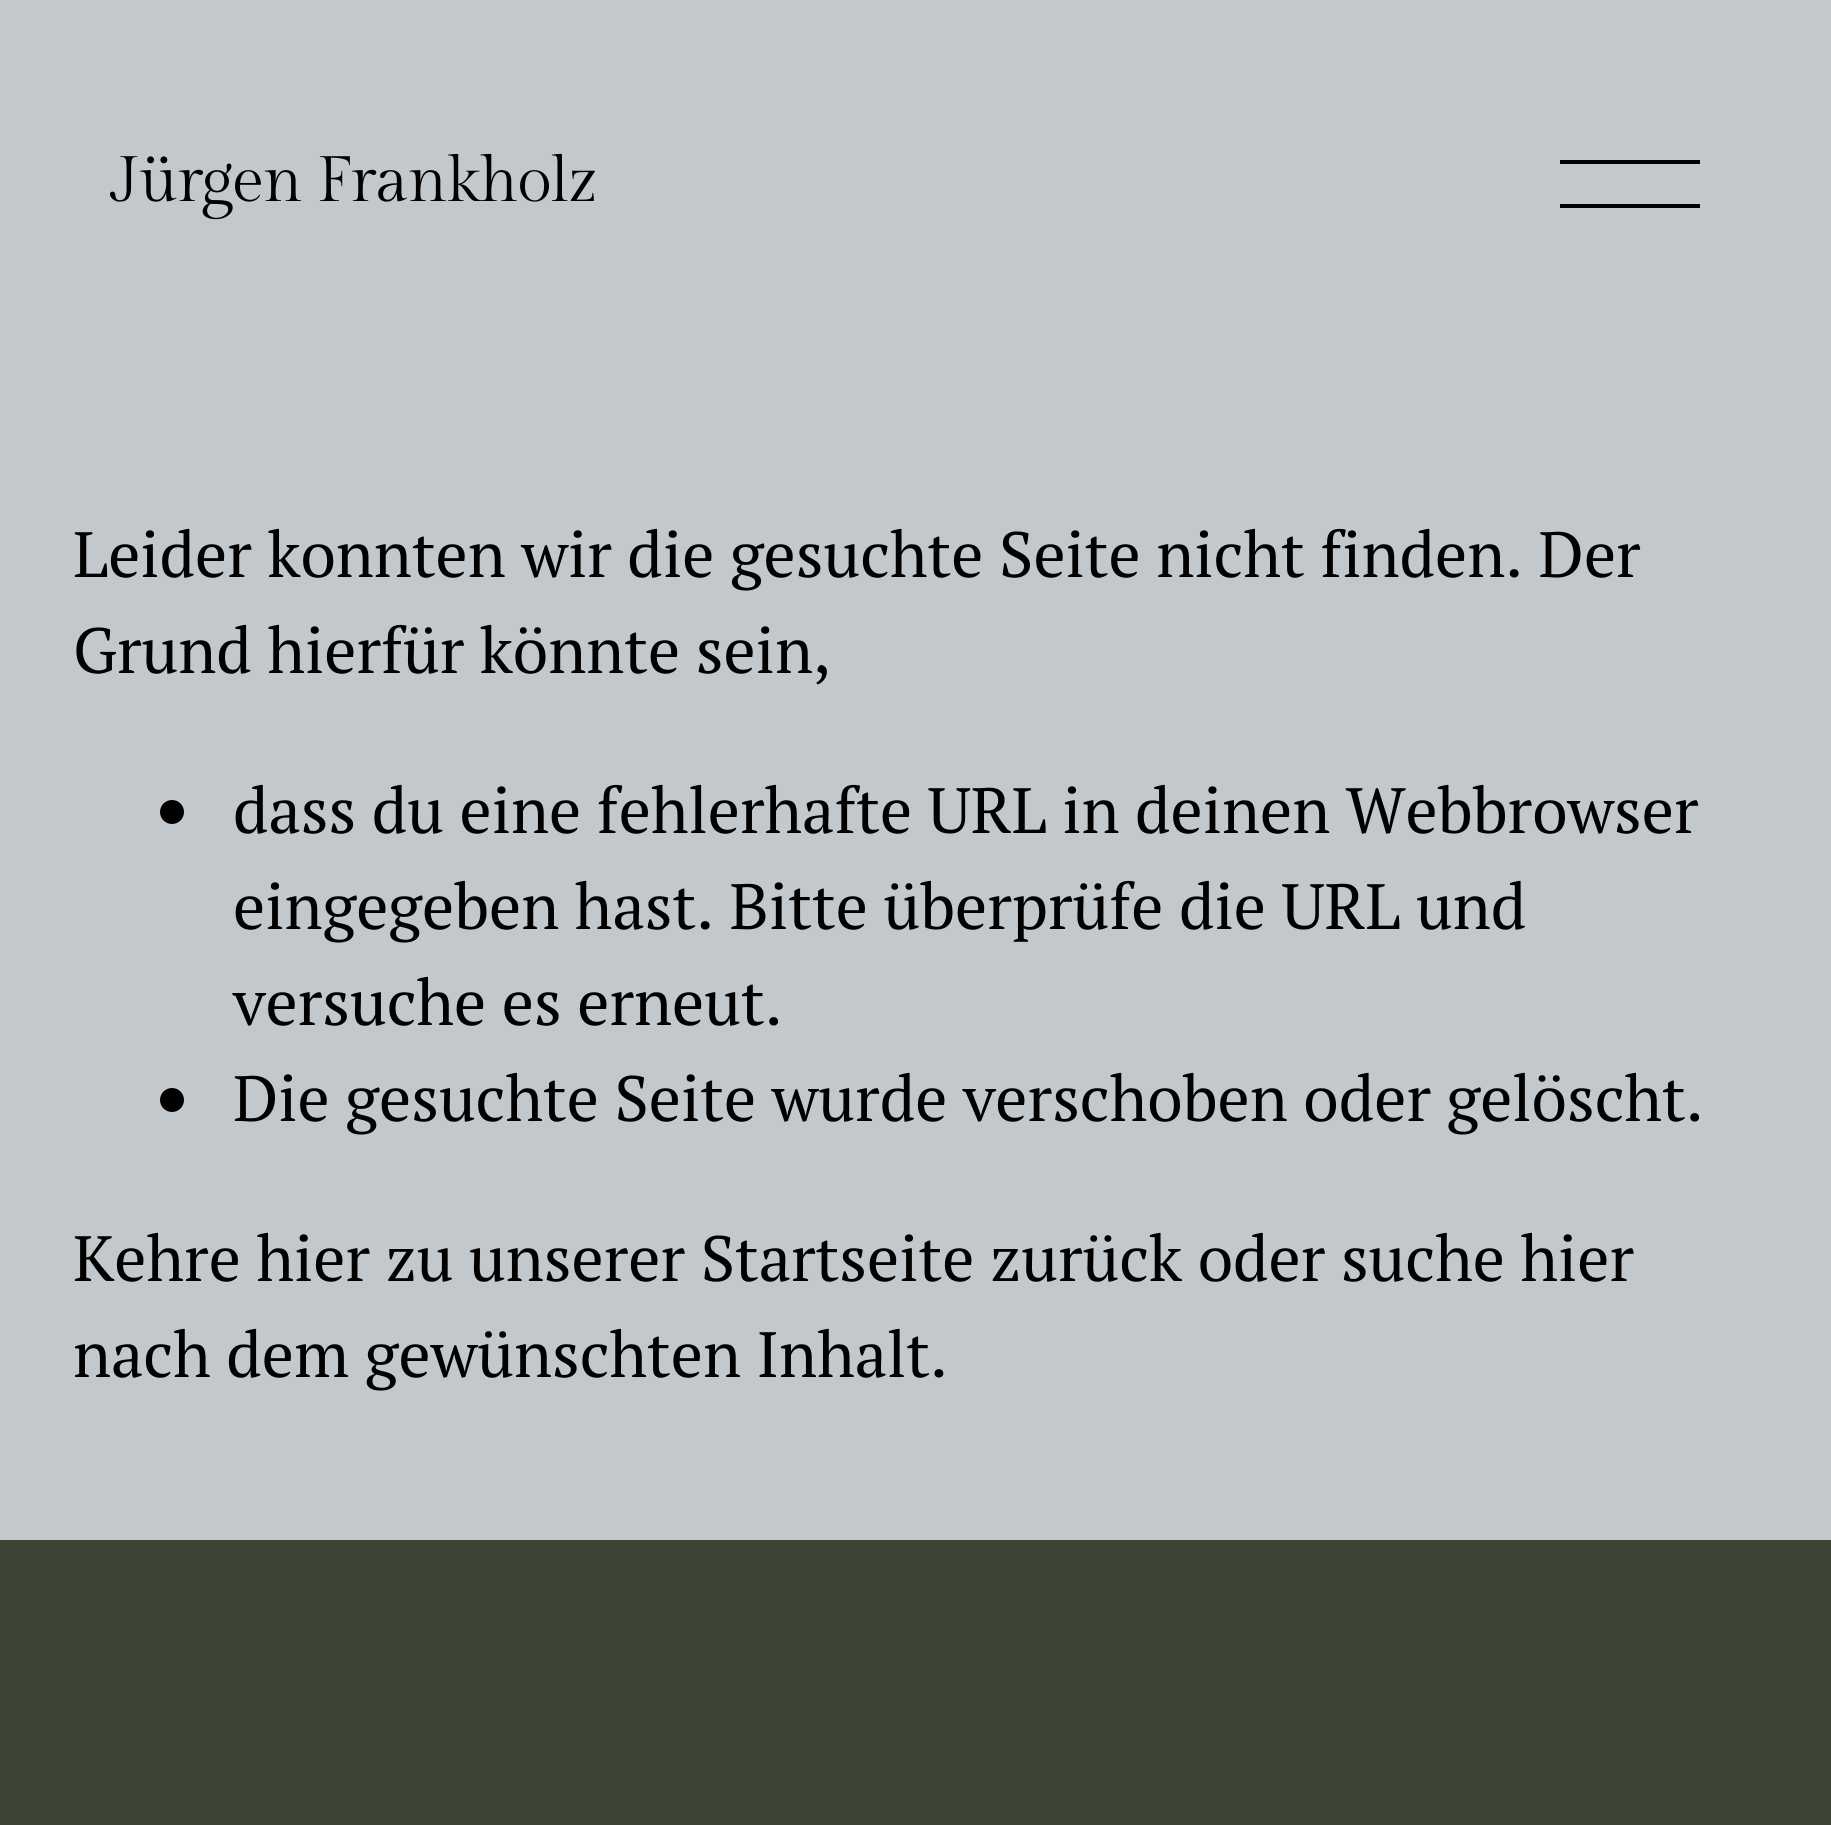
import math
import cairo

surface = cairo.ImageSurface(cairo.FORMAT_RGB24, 1831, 1825)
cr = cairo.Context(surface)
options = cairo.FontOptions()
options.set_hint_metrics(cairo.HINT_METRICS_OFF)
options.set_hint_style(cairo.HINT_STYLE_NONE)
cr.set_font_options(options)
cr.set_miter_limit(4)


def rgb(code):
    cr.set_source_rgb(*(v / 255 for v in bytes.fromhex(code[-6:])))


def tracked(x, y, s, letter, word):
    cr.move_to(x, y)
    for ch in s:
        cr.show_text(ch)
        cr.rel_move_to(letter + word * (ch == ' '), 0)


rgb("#c2c8cc")
cr.paint()
rgb("#000000")
cr.rectangle(1560, 160, 140, 4)
cr.fill()
cr.rectangle(1560, 204, 140, 4)
cr.fill()
cr.arc(172, 812, 12, 0, 2 * math.pi)
cr.fill()
cr.arc(172, 1100, 12, 0, 2 * math.pi)
cr.fill()
rgb("#3d4435")
cr.rectangle(0, 1540, 1831, 285)
cr.fill()
cr.select_font_face("Gilda Display")
cr.set_font_size(64)
rgb("#000000")
tracked(110, 201, "Jürgen Frankholz", -1.25, 0)
cr.select_font_face("PT Serif")
for x, y, s in [
    (73, 577, "Leider konnten wir die gesuchte Seite nicht finden. Der"),
    (73, 673, "Grund hierfür könnte sein,"),
    (233, 833, "dass du eine fehlerhafte URL in deinen Webbrowser"),
    (233, 929, "eingegeben hast. Bitte überprüfe die URL und"),
    (233, 1025, "versuche es erneut."),
    (233, 1121, "Die gesuchte Seite wurde verschoben oder gelöscht."),
    (73, 1281, "Kehre hier zu unserer Startseite zurück oder suche hier"),
    (73, 1377, "nach dem gewünschten Inhalt."),
]:
    cr.move_to(x, y)
    cr.show_text(s)
surface.write_to_png("page.png")
